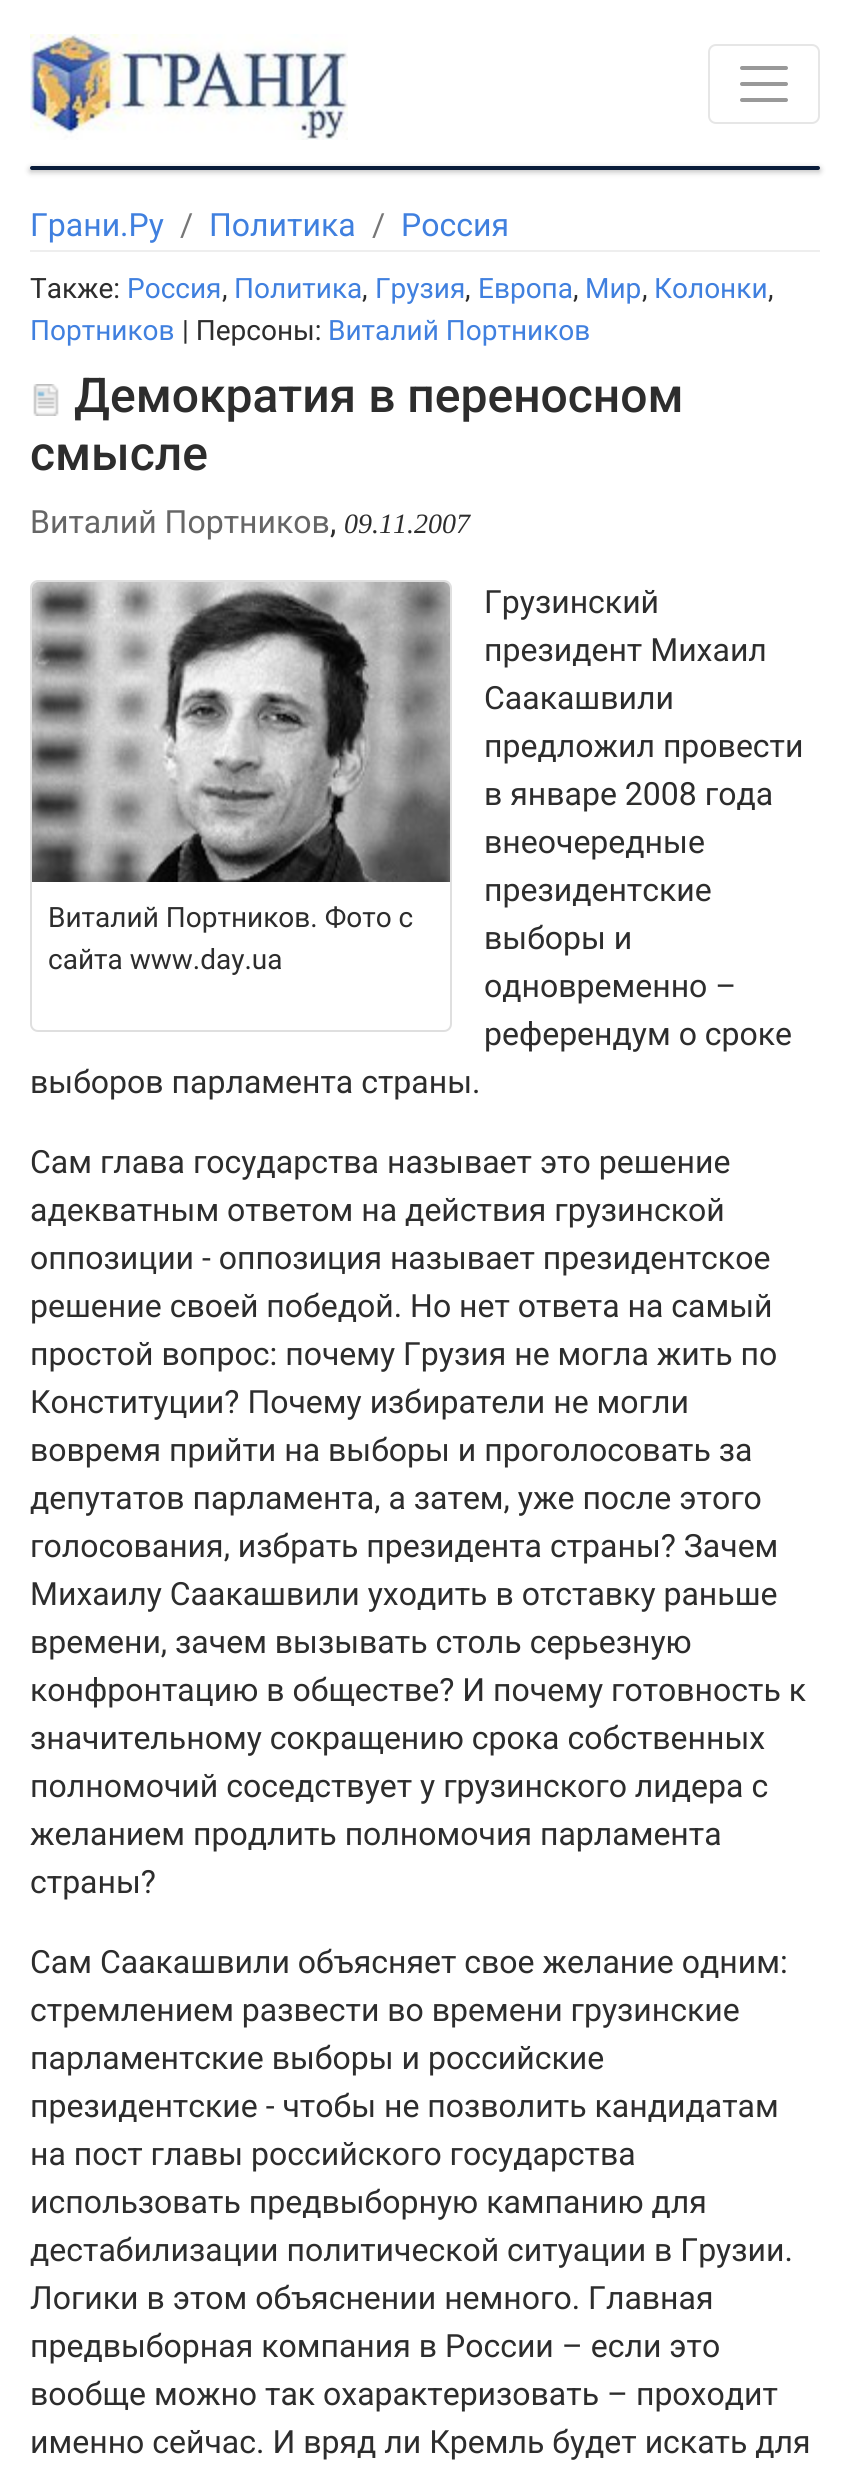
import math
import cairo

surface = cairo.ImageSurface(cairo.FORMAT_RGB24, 850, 2473)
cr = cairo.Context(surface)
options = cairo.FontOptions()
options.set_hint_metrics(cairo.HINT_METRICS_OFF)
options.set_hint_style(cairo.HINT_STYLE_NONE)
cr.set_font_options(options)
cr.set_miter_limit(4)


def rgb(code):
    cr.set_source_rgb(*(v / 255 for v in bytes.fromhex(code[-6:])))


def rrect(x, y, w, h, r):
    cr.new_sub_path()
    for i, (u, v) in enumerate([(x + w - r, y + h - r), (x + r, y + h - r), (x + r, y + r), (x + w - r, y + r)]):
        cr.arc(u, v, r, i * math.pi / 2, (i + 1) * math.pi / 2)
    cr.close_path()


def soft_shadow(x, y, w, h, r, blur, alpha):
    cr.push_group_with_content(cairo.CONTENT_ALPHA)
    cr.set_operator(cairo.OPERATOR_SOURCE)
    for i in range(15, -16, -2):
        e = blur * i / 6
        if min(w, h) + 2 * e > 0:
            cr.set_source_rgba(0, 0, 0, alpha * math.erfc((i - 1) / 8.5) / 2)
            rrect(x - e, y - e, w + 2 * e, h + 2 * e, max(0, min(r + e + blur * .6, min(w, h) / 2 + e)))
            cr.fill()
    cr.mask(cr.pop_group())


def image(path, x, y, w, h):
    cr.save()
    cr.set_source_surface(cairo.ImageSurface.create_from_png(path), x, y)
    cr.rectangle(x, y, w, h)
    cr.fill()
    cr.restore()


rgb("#ffffff")
cr.paint()
image("img/1.png", 30, 34, 318, 106)
rrect(709, 45, 110, 78, 7)
rgb("#e6e6e6")
cr.stroke()
cr.new_path()
cr.move_to(742, 68)
cr.line_to(786, 68)
cr.move_to(742, 84)
cr.line_to(786, 84)
cr.move_to(742, 100)
cr.line_to(786, 100)
rgb("#999999")
cr.set_line_width(4)
cr.set_line_cap(cairo.LINE_CAP_ROUND)
cr.stroke()
rgb("#000000")
soft_shadow(30, 168, 790, 4, 2, 3, 0.25)
rgb("#0a1d3a")
rrect(30, 166, 790, 4, 2)
cr.fill()
rgb("#eeeeee")
cr.rectangle(30, 250, 790, 2)
cr.fill()
image("img/2.png", 33, 384, 26, 32)
rrect(31, 581, 420, 450, 7)
rgb("#dfdfdf")
cr.set_line_width(2)
cr.set_line_cap(cairo.LINE_CAP_BUTT)
cr.stroke()
image("img/3.png", 32, 582, 418, 300)
cr.select_font_face("Roboto")
cr.set_font_size(32)
rgb("#4080df")
cr.move_to(30, 236)
cr.show_text("Грани.Ру")
rgb("#777777")
cr.move_to(180, 236)
cr.show_text("/")
rgb("#4080df")
cr.move_to(209, 236)
cr.show_text("Политика")
rgb("#777777")
cr.move_to(372, 236)
cr.show_text("/")
rgb("#4080df")
cr.move_to(401, 236)
cr.show_text("Россия")
cr.set_font_size(28)
rgb("#2d2d2d")
cr.move_to(30, 298)
cr.show_text("Также:")
rgb("#4080df")
cr.move_to(127, 298)
cr.show_text("Россия")
rgb("#2d2d2d")
cr.move_to(222, 298)
cr.show_text(",")
rgb("#4080df")
cr.move_to(234, 298)
cr.show_text("Политика")
rgb("#2d2d2d")
cr.move_to(362, 298)
cr.show_text(",")
rgb("#4080df")
cr.move_to(375, 298)
cr.show_text("Грузия")
rgb("#2d2d2d")
cr.move_to(465, 298)
cr.show_text(",")
rgb("#4080df")
cr.move_to(478, 298)
cr.show_text("Европа")
rgb("#2d2d2d")
cr.move_to(573, 298)
cr.show_text(",")
rgb("#4080df")
cr.move_to(585, 298)
cr.show_text("Мир")
rgb("#2d2d2d")
cr.move_to(642, 298)
cr.show_text(",")
rgb("#4080df")
cr.move_to(654, 298)
cr.show_text("Колонки")
rgb("#2d2d2d")
cr.move_to(768, 298)
cr.show_text(",")
rgb("#4080df")
cr.move_to(30, 340)
cr.show_text("Портников")
rgb("#2d2d2d")
cr.move_to(182, 340)
cr.show_text("| Персоны:")
rgb("#4080df")
cr.move_to(328, 340)
cr.show_text("Виталий Портников")
cr.select_font_face("Roboto Medium")
cr.set_font_size(48)
rgb("#2d2d2d")
cr.move_to(74, 412)
cr.show_text("Демократия в переносном")
cr.move_to(30, 470)
cr.show_text("смысле")
cr.select_font_face("Roboto")
cr.set_font_size(32)
rgb("#666666")
cr.move_to(30, 533)
cr.show_text("Виталий Портников")
rgb("#2d2d2d")
cr.move_to(330, 533)
cr.show_text(",")
cr.select_font_face("Liberation Serif", cairo.FONT_SLANT_ITALIC)
cr.set_font_size(28)
cr.move_to(344, 533)
cr.show_text("09.11.2007")
cr.select_font_face("Roboto")
cr.set_font_size(32)
for x, y, s in [
    (484, 613, "Грузинский"),
    (484, 661, "президент Михаил"),
    (484, 709, "Саакашвили"),
    (484, 757, "предложил провести"),
    (484, 805, "в январе 2008 года"),
    (484, 853, "внеочередные"),
    (484, 901, "президентские"),
    (484, 949, "выборы и"),
    (484, 997, "одновременно –"),
    (484, 1045, "референдум о сроке"),
    (30, 1093, "выборов парламента страны."),
    (30, 1173, "Сам глава государства называет это решение"),
    (30, 1221, "адекватным ответом на действия грузинской"),
    (30, 1269, "оппозиции - оппозиция называет президентское"),
    (30, 1317, "решение своей победой. Но нет ответа на самый"),
    (30, 1365, "простой вопрос: почему Грузия не могла жить по"),
    (30, 1413, "Конституции? Почему избиратели не могли"),
    (30, 1461, "вовремя прийти на выборы и проголосовать за"),
    (30, 1509, "депутатов парламента, а затем, уже после этого"),
    (30, 1557, "голосования, избрать президента страны? Зачем"),
    (30, 1605, "Михаилу Саакашвили уходить в отставку раньше"),
    (30, 1653, "времени, зачем вызывать столь серьезную"),
    (30, 1701, "конфронтацию в обществе? И почему готовность к"),
    (30, 1749, "значительному сокращению срока собственных"),
    (30, 1797, "полномочий соседствует у грузинского лидера с"),
    (30, 1845, "желанием продлить полномочия парламента"),
    (30, 1893, "страны?"),
    (30, 1973, "Сам Саакашвили объясняет свое желание одним:"),
    (30, 2021, "стремлением развести во времени грузинские"),
    (30, 2069, "парламентские выборы и российские"),
    (30, 2117, "президентские - чтобы не позволить кандидатам"),
    (30, 2165, "на пост главы российского государства"),
    (30, 2213, "использовать предвыборную кампанию для"),
    (30, 2261, "дестабилизации политической ситуации в Грузии."),
    (30, 2309, "Логики в этом объяснении немного. Главная"),
    (30, 2357, "предвыборная компания в России – если это"),
    (30, 2405, "вообще можно так охарактеризовать – проходит"),
    (30, 2453, "именно сейчас. И вряд ли Кремль будет искать для"),
]:
    cr.move_to(x, y)
    cr.show_text(s)
cr.set_font_size(28)
cr.move_to(48, 927)
cr.show_text("Виталий Портников. Фото с")
cr.move_to(48, 969)
cr.show_text("сайта www.day.ua")
surface.write_to_png("page.png")
